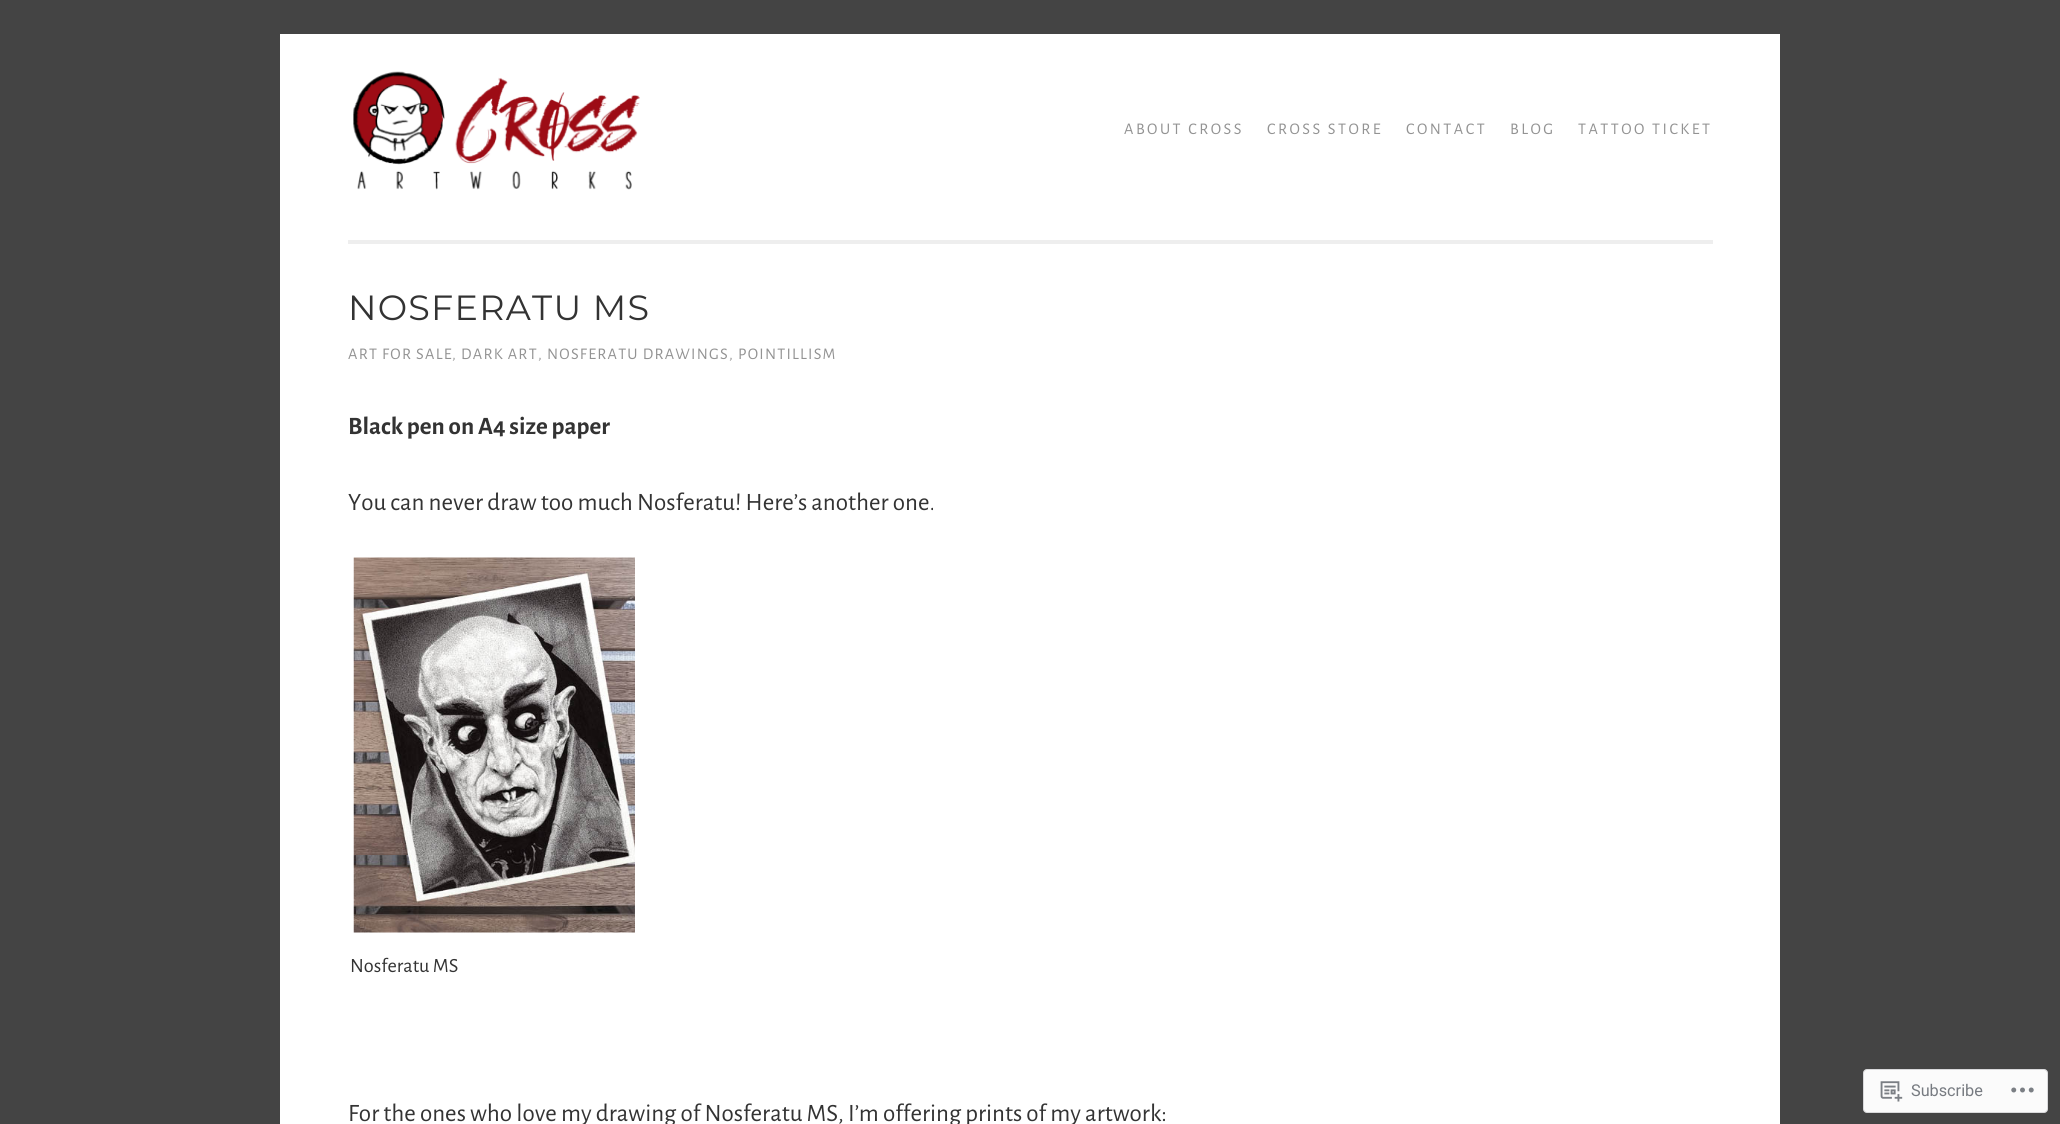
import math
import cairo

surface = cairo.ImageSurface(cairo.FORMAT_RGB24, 2060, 1124)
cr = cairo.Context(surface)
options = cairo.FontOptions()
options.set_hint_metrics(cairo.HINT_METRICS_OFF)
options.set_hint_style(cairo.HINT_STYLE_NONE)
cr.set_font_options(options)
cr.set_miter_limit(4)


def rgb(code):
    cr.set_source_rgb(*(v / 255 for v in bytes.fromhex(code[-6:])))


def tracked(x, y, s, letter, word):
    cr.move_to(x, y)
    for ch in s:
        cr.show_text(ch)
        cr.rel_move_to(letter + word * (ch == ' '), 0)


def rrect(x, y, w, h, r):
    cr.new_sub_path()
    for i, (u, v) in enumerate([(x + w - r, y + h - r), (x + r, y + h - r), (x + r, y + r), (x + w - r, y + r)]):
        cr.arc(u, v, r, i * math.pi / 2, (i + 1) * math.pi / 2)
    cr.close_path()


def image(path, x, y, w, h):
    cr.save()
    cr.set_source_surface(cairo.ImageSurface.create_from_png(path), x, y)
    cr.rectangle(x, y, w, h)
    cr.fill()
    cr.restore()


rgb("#444444")
cr.paint()
rgb("#ffffff")
cr.rectangle(280, 34, 1500, 1090)
cr.fill()
rgb("#eeeeee")
cr.rectangle(348, 240, 1365, 4)
cr.fill()
image("img/1.png", 353, 71, 287, 119)
image("img/2.png", 353, 557, 282, 376)
rgb("#fbfbfb")
rrect(1863.5, 1069.5, 184, 43, 3.5)
cr.fill_preserve()
rgb("#d9d9db")
cr.set_line_width(1)
cr.stroke()
image("img/3.png", 1880, 1081, 23, 21)
image("img/4.png", 2011, 1087, 23, 6)
cr.select_font_face("Alegreya Sans")
cr.set_font_size(16.25)
rgb("#939393")
for x, y, s in [
    (1124, 134, "ABOUT CROSS"),
    (1267, 134, "CROSS STORE"),
    (1406, 134, "CONTACT"),
    (1510, 134, "BLOG"),
    (1578, 134, "TATTOO TICKET"),
]:
    tracked(x, y, s, 2.5, 0)
cr.select_font_face("Montserrat Thin")
cr.set_font_size(35)
rgb("#333333")
tracked(348, 320, "NOSFERATU MS", 1.25, 0)
cr.select_font_face("Alegreya Sans")
cr.set_font_size(16.25)
rgb("#939393")
tracked(348, 359, "ART FOR SALE", 1.25, 0)
rgb("#999999")
tracked(452, 359, ",", 1.25, 0)
rgb("#939393")
tracked(461, 359, "DARK ART", 1.25, 0)
rgb("#999999")
tracked(538, 359, ",", 1.25, 0)
rgb("#939393")
tracked(547, 359, "NOSFERATU DRAWINGS", 1.25, 0)
rgb("#999999")
tracked(729, 359, ",", 1.25, 0)
rgb("#939393")
tracked(738, 359, "POINTILLISM", 1.25, 0)
cr.select_font_face("Alegreya Sans", cairo.FONT_SLANT_NORMAL, cairo.FONT_WEIGHT_BOLD)
cr.set_font_size(25)
rgb("#333333")
cr.move_to(348, 434)
cr.show_text("Black pen on A4 size paper")
cr.select_font_face("Alegreya Sans")
cr.move_to(348, 510)
cr.show_text("You can never draw too much Nosferatu! Here’s another one.")
cr.set_font_size(20.25)
cr.move_to(350, 972)
cr.show_text("Nosferatu MS")
cr.set_font_size(25)
cr.move_to(348, 1121)
cr.show_text("For the ones who love my drawing of Nosferatu MS, I’m offering prints of my artwork:")
cr.select_font_face("Roboto")
cr.set_font_size(16.25)
rgb("#777b81")
cr.move_to(1911, 1096)
cr.show_text("Subscribe")
surface.write_to_png("page.png")
